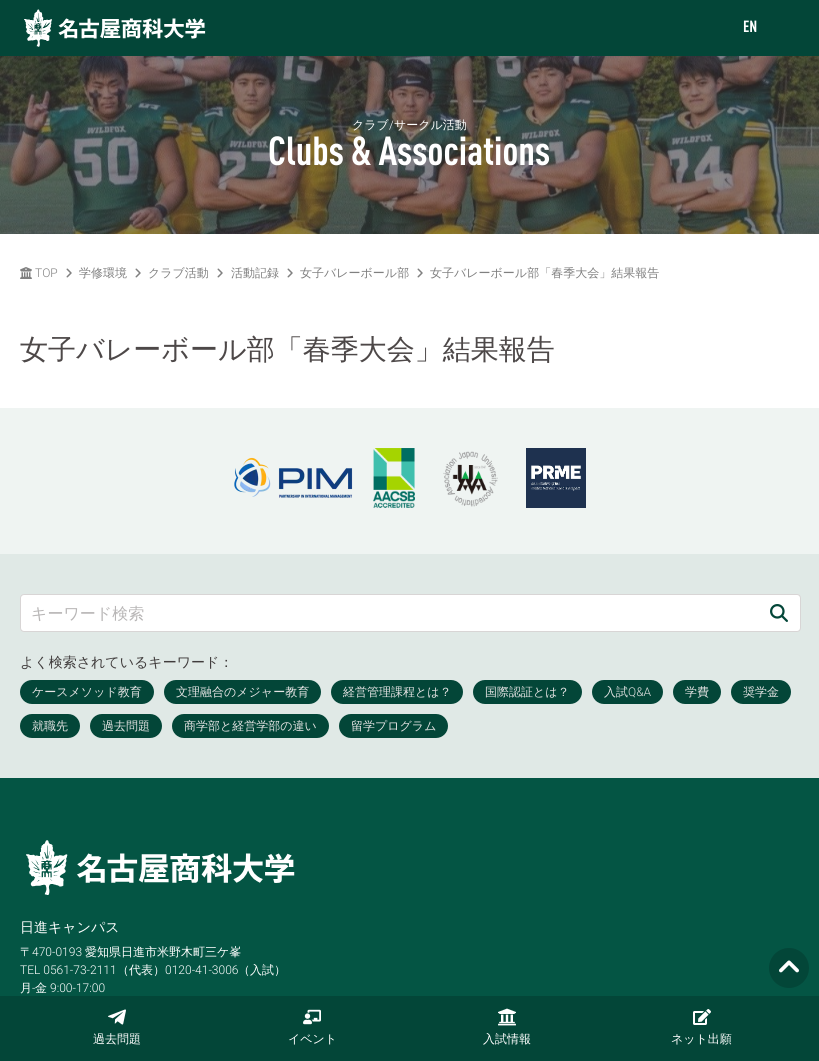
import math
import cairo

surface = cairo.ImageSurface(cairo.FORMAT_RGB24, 819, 1061)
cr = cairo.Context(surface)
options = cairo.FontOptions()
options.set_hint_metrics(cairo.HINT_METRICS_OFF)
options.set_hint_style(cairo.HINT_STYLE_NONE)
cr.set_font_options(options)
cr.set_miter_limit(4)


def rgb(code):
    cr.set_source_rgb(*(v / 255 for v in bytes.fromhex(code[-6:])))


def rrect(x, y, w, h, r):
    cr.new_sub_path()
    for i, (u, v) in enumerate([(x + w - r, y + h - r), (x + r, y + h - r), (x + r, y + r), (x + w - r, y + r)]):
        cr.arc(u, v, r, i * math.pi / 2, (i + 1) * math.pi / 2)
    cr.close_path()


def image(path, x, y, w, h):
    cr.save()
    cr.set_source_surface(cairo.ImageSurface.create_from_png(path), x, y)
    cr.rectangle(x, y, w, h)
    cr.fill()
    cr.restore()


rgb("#ffffff")
cr.paint()
rgb("#034638")
cr.rectangle(0, 0, 819, 56)
cr.fill()
image("img/1.png", 24, 9, 182, 38)
image("img/2.png", 0, 56, 819, 178)
image("img/3.png", 20, 267, 12, 12)
image("img/4.png", 66, 268, 6, 10)
image("img/4.png", 135, 268, 6, 10)
image("img/4.png", 217, 268, 6, 10)
image("img/4.png", 287, 268, 6, 10)
image("img/4.png", 417, 268, 6, 10)
rgb("#eff4f2")
cr.rectangle(0, 408, 819, 146)
cr.fill()
image("img/5.png", 234, 457, 119, 41)
image("img/6.png", 373, 448, 42, 60)
image("img/7.png", 443, 451, 55, 56)
image("img/8.png", 526, 448, 60, 60)
rgb("#e0e9e6")
cr.rectangle(0, 554, 819, 224)
cr.fill()
rgb("#ffffff")
rrect(20.5, 594.5, 780, 37, 3.5)
cr.fill_preserve()
rgb("#d8d5d5")
cr.set_line_width(1)
cr.stroke()
image("img/9.png", 770, 604, 18, 18)
rgb("#034638")
rrect(20, 680, 134, 24, 12)
cr.fill()
rrect(164, 680, 157, 24, 12)
cr.fill()
rrect(331, 680, 132, 24, 12)
cr.fill()
rrect(473, 680, 109, 24, 12)
cr.fill()
rrect(592, 680, 71, 24, 12)
cr.fill()
rrect(673, 680, 48, 24, 12)
cr.fill()
rrect(731, 680, 60, 24, 12)
cr.fill()
rrect(20, 714, 60, 24, 12)
cr.fill()
rrect(90, 714, 72, 24, 12)
cr.fill()
rrect(172, 714, 157, 24, 12)
cr.fill()
rrect(339, 714, 109, 24, 12)
cr.fill()
rgb("#045544")
cr.rectangle(0, 778, 819, 218)
cr.fill()
image("img/10.png", 26, 840, 269, 55)
rgb("#ffffff")
cr.arc(787, 970, 16, 0, 2 * math.pi)
cr.fill()
image("img/11.png", 769, 948, 40, 40)
rgb("#034638")
cr.rectangle(0, 996, 819, 65)
cr.fill()
image("img/12.png", 108, 1009, 18, 16)
image("img/13.png", 303, 1009, 18, 16)
image("img/14.png", 498, 1008, 18, 18)
image("img/15.png", 693, 1009, 18, 16)
cr.select_font_face("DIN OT", cairo.FONT_SLANT_NORMAL, cairo.FONT_WEIGHT_BOLD)
cr.set_font_size(16)
rgb("#ffffff")
cr.move_to(743, 32)
cr.show_text("EN")
cr.select_font_face("WenQuanYi Zen Hei Medium")
cr.set_font_size(12)
cr.move_to(352, 129)
cr.show_text("クラブ")
cr.select_font_face("Roboto Light")
cr.move_to(389, 129)
cr.show_text("/")
cr.select_font_face("WenQuanYi Zen Hei Medium")
cr.move_to(394, 129)
cr.show_text("サークル活動")
cr.select_font_face("DIN OT", cairo.FONT_SLANT_NORMAL, cairo.FONT_WEIGHT_BOLD)
cr.set_font_size(40)
cr.move_to(268, 165)
cr.show_text("Clubs & Associations")
cr.select_font_face("Roboto Light")
cr.set_font_size(12)
rgb("#808080")
cr.move_to(35, 277)
cr.show_text("TOP")
cr.select_font_face("WenQuanYi Zen Hei Medium")
for x, y, s in [
    (79, 277, "学修環境"),
    (148, 277, "クラブ活動"),
    (231, 277, "活動記録"),
    (300, 277, "女子バレーボール部"),
    (430, 277, "女子バレーボール部「春季大会」結果報告"),
]:
    cr.move_to(x, y)
    cr.show_text(s)
cr.set_font_size(28)
rgb("#4d4848")
cr.move_to(20, 359)
cr.show_text("女子バレーボール部「春季大会」結果報告")
cr.set_font_size(16)
rgb("#b8b6b6")
cr.move_to(31, 619)
cr.show_text("キーワード検索")
cr.set_font_size(14)
rgb("#403c3c")
cr.move_to(20, 667)
cr.show_text("よく検索されているキーワード：")
cr.set_font_size(12)
rgb("#e4e3e3")
for x, y, s in [
    (32, 696, "ケースメソッド教育"),
    (176, 696, "文理融合のメジャー教育"),
    (343, 696, "経営管理課程とは？"),
    (485, 696, "国際認証とは？"),
    (604, 696, "入試"),
]:
    cr.move_to(x, y)
    cr.show_text(s)
cr.select_font_face("Roboto Light")
cr.move_to(628, 696)
cr.show_text("Q&A")
cr.select_font_face("WenQuanYi Zen Hei Medium")
for x, y, s in [
    (685, 696, "学費"),
    (743, 696, "奨学金"),
    (32, 730, "就職先"),
    (102, 730, "過去問題"),
    (184, 730, "商学部と経営学部の違い"),
    (351, 730, "留学プログラム"),
]:
    cr.move_to(x, y)
    cr.show_text(s)
cr.set_font_size(14)
rgb("#ffffff")
cr.move_to(20, 932)
cr.show_text("日進キャンパス")
cr.set_font_size(12)
cr.move_to(20, 956)
cr.show_text("〒")
cr.select_font_face("Roboto Light")
cr.move_to(32, 956)
cr.show_text("470-0193")
cr.select_font_face("WenQuanYi Zen Hei Medium")
cr.move_to(85, 956)
cr.show_text("愛知県日進市米野木町三ケ峯")
cr.select_font_face("Roboto Light")
cr.move_to(20, 974)
cr.show_text("TEL 0561-73-2111")
cr.select_font_face("WenQuanYi Zen Hei Medium")
cr.move_to(117, 974)
cr.show_text("（代表）")
cr.select_font_face("Roboto Light")
cr.move_to(165, 974)
cr.show_text("0120-41-3006")
cr.select_font_face("WenQuanYi Zen Hei Medium")
cr.move_to(238, 974)
cr.show_text("（入試）")
cr.move_to(20, 992)
cr.show_text("月")
cr.select_font_face("Roboto Light")
cr.move_to(32, 992)
cr.show_text("-")
cr.select_font_face("WenQuanYi Zen Hei Medium")
cr.move_to(35, 992)
cr.show_text("金")
cr.select_font_face("Roboto Light")
cr.move_to(50, 992)
cr.show_text("9:00-17:00")
cr.select_font_face("WenQuanYi Zen Hei Medium")
for x, y, s in [
    (93, 1043, "過去問題"),
    (288, 1043, "イベント"),
    (483, 1043, "入試情報"),
    (671, 1043, "ネット出願"),
]:
    cr.move_to(x, y)
    cr.show_text(s)
surface.write_to_png("page.png")
